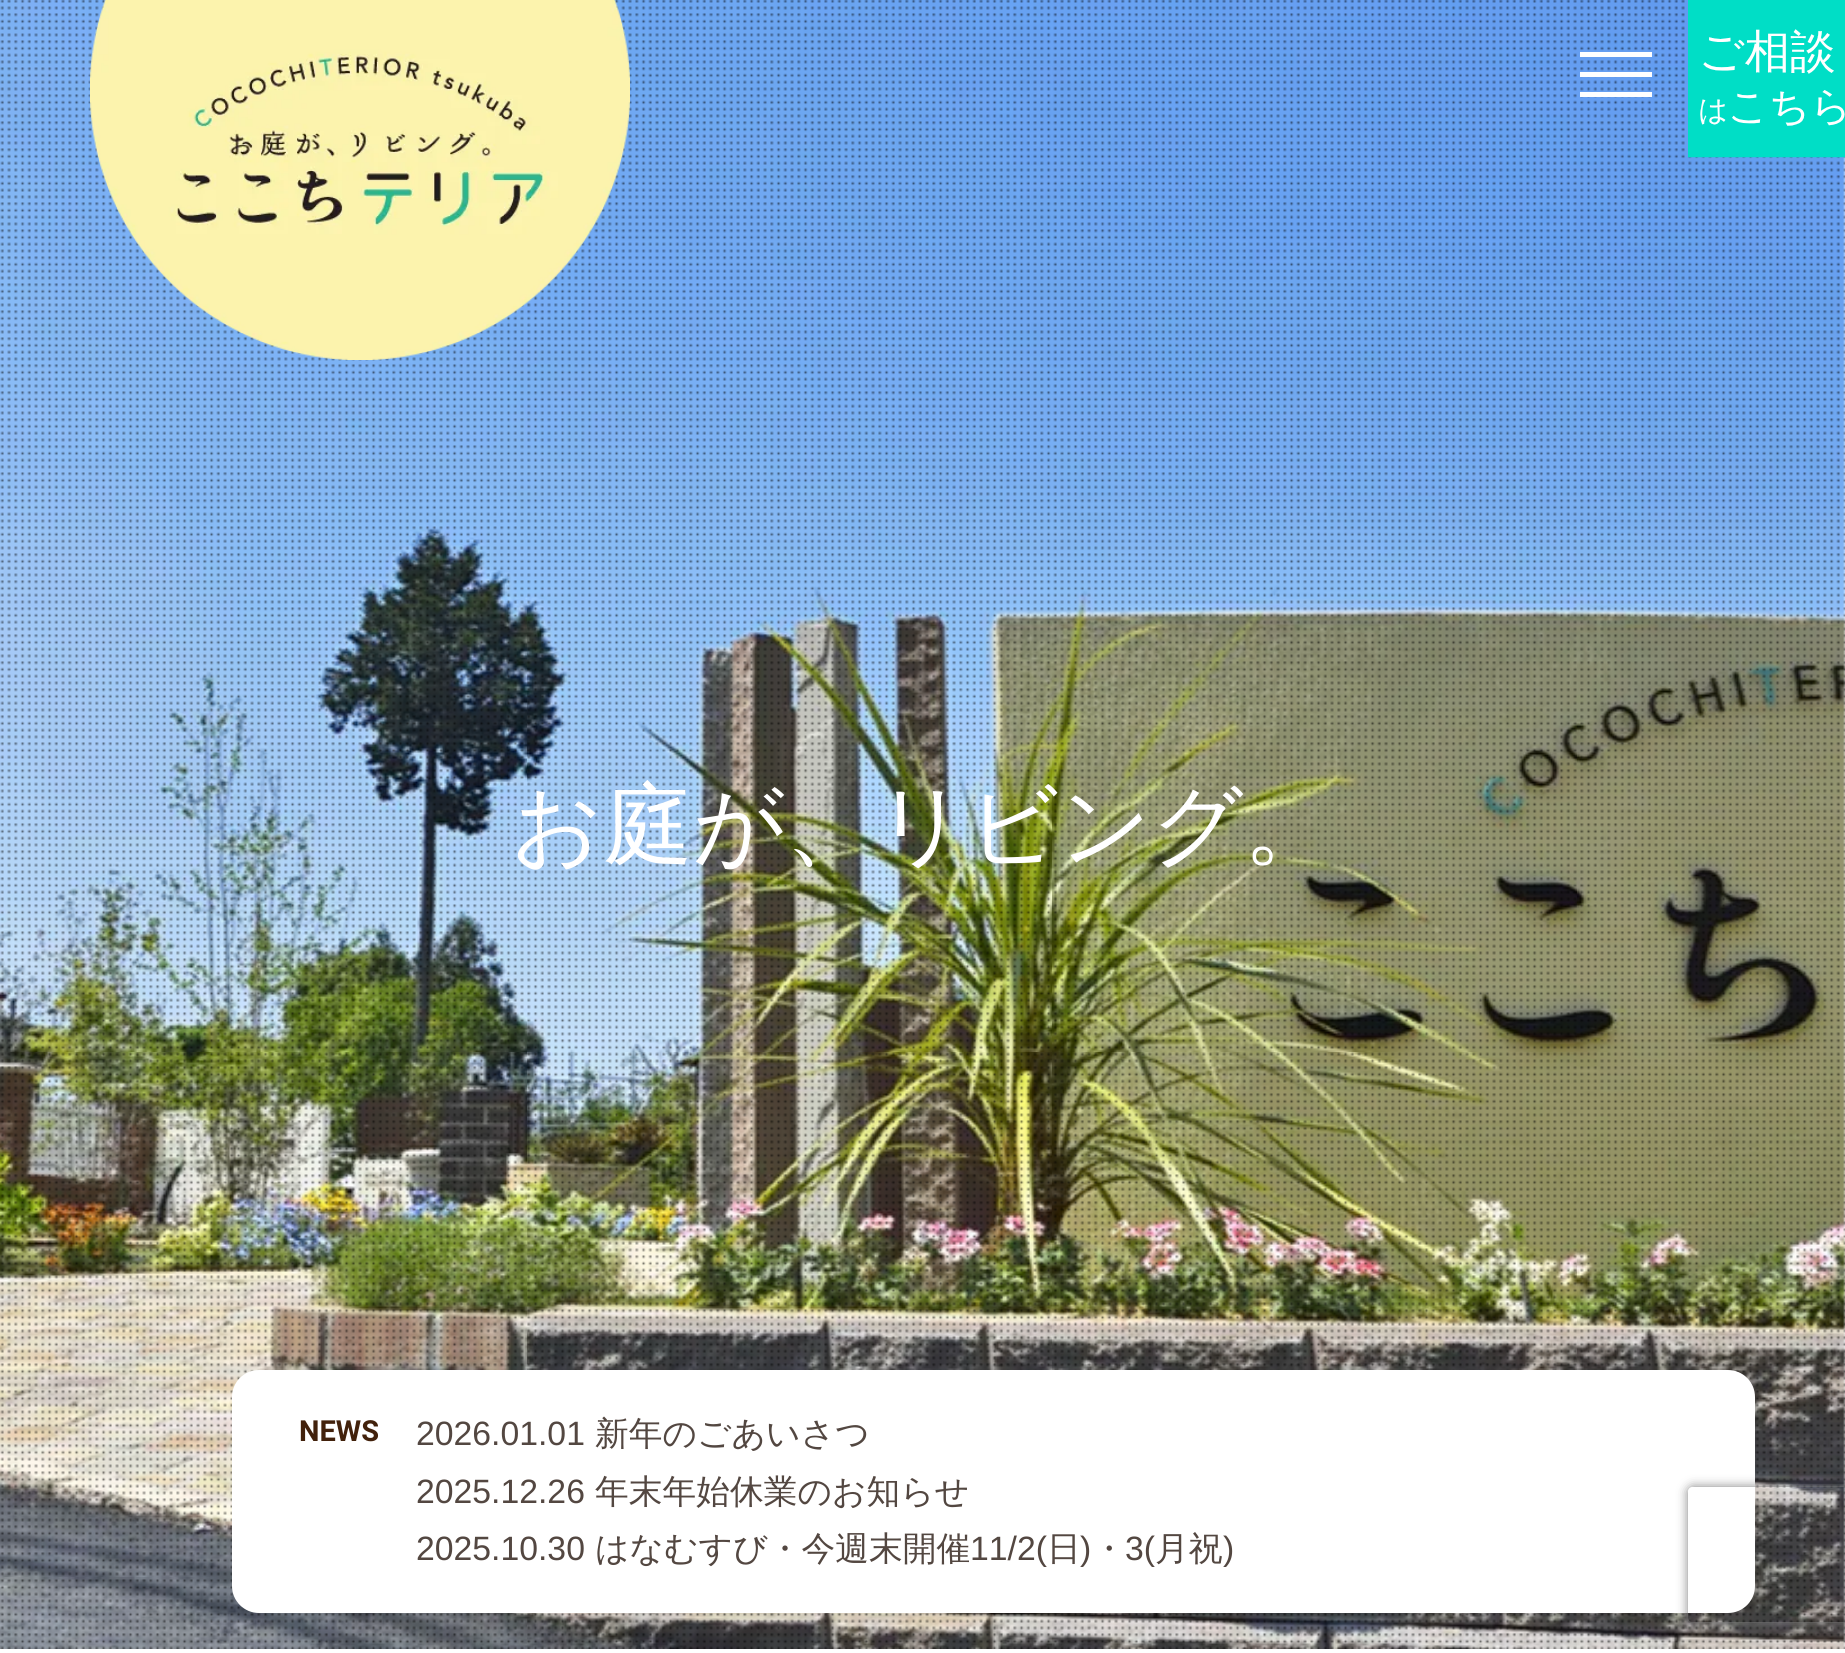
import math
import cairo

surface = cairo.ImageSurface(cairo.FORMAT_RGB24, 1845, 1653)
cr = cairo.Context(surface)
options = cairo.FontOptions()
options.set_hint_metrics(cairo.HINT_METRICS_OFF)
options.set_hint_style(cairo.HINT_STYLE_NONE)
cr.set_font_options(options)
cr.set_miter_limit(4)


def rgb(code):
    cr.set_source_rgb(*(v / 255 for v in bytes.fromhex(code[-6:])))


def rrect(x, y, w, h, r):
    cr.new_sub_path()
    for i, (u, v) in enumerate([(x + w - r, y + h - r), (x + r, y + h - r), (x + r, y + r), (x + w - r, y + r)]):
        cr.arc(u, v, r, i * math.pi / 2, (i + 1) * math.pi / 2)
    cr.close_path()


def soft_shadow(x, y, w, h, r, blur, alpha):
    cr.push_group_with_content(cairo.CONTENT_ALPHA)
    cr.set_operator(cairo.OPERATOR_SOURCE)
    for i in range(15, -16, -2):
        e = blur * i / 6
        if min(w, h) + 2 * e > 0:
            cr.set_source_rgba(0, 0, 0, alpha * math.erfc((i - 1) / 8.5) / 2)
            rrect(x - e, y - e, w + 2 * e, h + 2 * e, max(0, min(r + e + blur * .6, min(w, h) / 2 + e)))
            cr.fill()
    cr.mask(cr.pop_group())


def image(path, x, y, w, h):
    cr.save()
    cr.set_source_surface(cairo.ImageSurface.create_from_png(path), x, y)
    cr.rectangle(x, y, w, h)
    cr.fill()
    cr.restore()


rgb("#ffffff")
cr.paint()
image("img/1.png", 0, 0, 1845, 1649)
image("img/2.png", 0, 0, 1845, 1649)
for x, y, w, h, color in [
    (1580, 52, 72, 5, "#ffffff"),
    (1580, 72, 72, 5, "#ffffff"),
    (1580, 92, 72, 5, "#ffffff"),
]:
    rgb(color)
    cr.rectangle(x, y, w, h)
    cr.fill()
image("img/3.png", 1688, 0, 157, 158)
image("img/4.png", 90, 0, 540, 360)
rrect(232, 1370, 1523, 243, 27)
cr.fill()
cr.save()
cr.set_fill_rule(cairo.FILL_RULE_EVEN_ODD)
cr.new_path()
cr.move_to(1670, 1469)
cr.line_to(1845, 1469)
cr.line_to(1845, 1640)
cr.line_to(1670, 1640)
cr.close_path()
cr.move_to(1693, 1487)
cr.line_to(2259, 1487)
cr.curve_to(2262, 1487, 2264, 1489, 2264, 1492)
cr.line_to(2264, 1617)
cr.curve_to(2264, 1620, 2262, 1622, 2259, 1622)
cr.line_to(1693, 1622)
cr.curve_to(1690, 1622, 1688, 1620, 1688, 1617)
cr.line_to(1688, 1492)
cr.curve_to(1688, 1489, 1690, 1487, 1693, 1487)
cr.close_path()
cr.clip()
rgb("#808080")
soft_shadow(1688, 1487, 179, 135, 5, 5.5, 1)
cr.restore()
cr.select_font_face("WenQuanYi Zen Hei Medium")
cr.set_font_size(90)
cr.move_to(511, 856)
cr.show_text("お庭が、リビング。")
cr.select_font_face("Roboto", cairo.FONT_SLANT_NORMAL, cairo.FONT_WEIGHT_BOLD)
cr.set_font_size(29)
rgb("#42210b")
cr.move_to(299, 1441)
cr.show_text("NEWS")
cr.select_font_face("Liberation Sans")
cr.set_font_size(33.75)
rgb("#534741")
cr.move_to(416, 1445)
cr.show_text("2026.01.01")
cr.select_font_face("WenQuanYi Zen Hei Medium")
cr.move_to(595, 1445)
cr.show_text("新年のごあいさつ")
cr.select_font_face("Liberation Sans")
cr.move_to(416, 1503)
cr.show_text("2025.12.26")
cr.select_font_face("WenQuanYi Zen Hei Medium")
cr.move_to(595, 1503)
cr.show_text("年末年始休業のお知らせ")
cr.select_font_face("Liberation Sans")
cr.move_to(416, 1560)
cr.show_text("2025.10.30")
cr.select_font_face("WenQuanYi Zen Hei Medium")
cr.move_to(595, 1560)
cr.show_text("はなむすび・今週末開催")
cr.select_font_face("Liberation Sans")
cr.move_to(970, 1560)
cr.show_text("11/2(")
cr.select_font_face("WenQuanYi Zen Hei Medium")
cr.move_to(1047, 1560)
cr.show_text("日")
cr.select_font_face("Liberation Sans")
cr.move_to(1080, 1560)
cr.show_text(")")
cr.select_font_face("WenQuanYi Zen Hei Medium")
cr.move_to(1092, 1560)
cr.show_text("・")
cr.select_font_face("Liberation Sans")
cr.move_to(1125, 1560)
cr.show_text("3(")
cr.select_font_face("WenQuanYi Zen Hei Medium")
cr.move_to(1155, 1560)
cr.show_text("月祝")
cr.select_font_face("Liberation Sans")
cr.move_to(1223, 1560)
cr.show_text(")")
surface.write_to_png("page.png")
